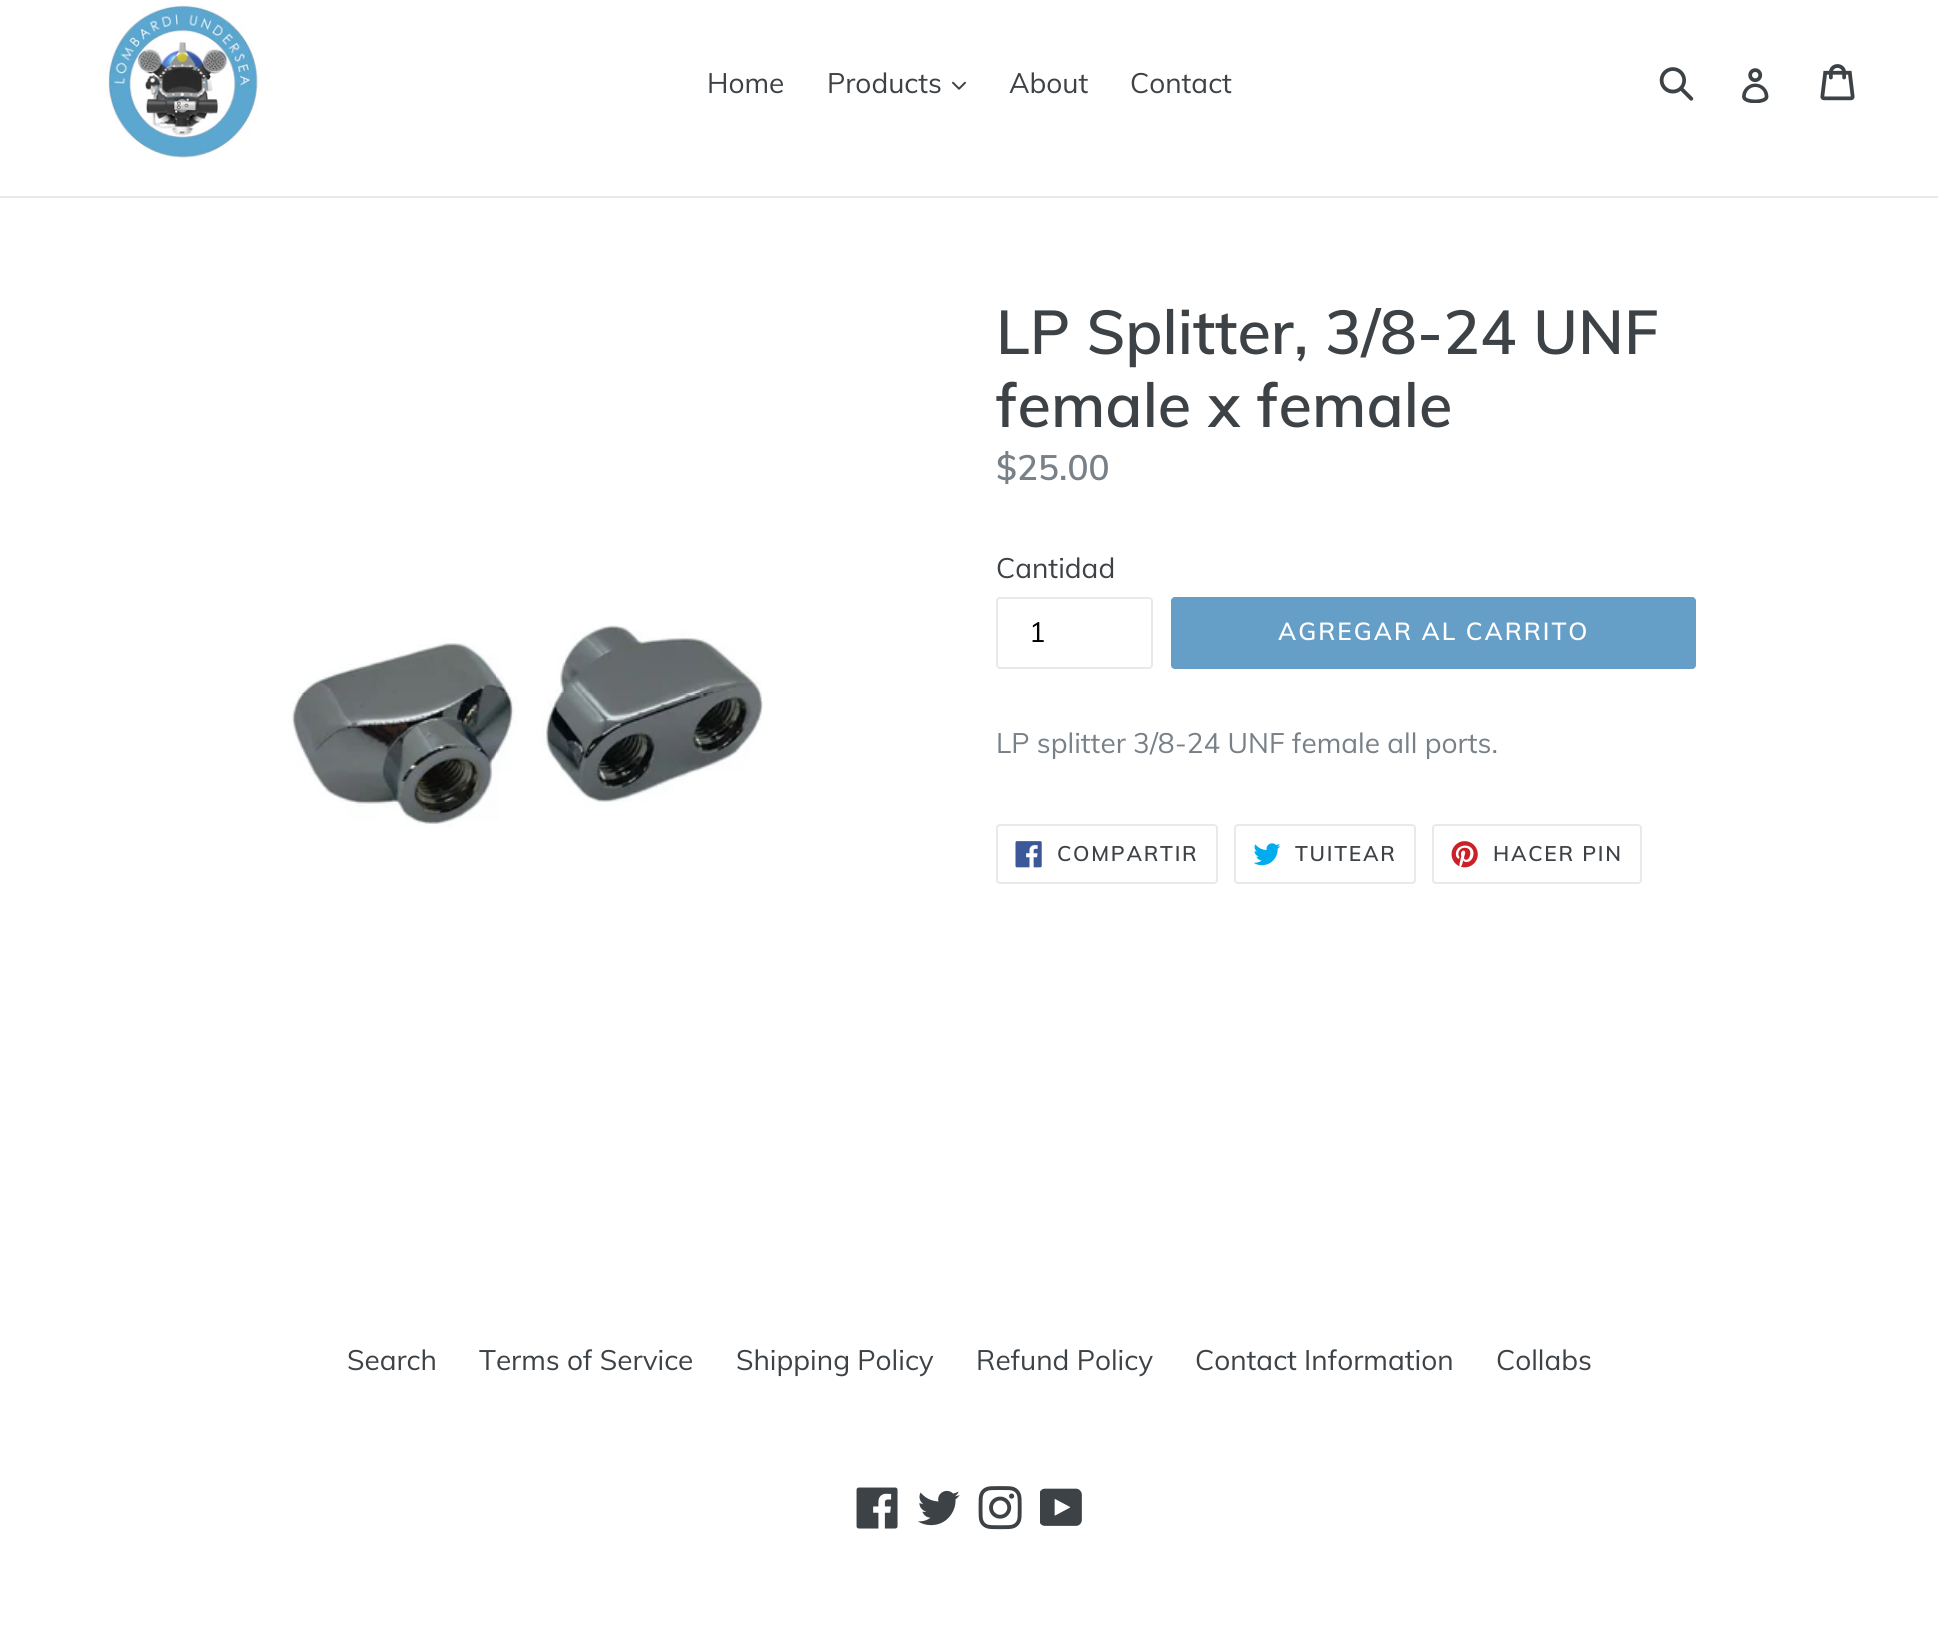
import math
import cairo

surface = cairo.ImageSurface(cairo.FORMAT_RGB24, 1938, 1625)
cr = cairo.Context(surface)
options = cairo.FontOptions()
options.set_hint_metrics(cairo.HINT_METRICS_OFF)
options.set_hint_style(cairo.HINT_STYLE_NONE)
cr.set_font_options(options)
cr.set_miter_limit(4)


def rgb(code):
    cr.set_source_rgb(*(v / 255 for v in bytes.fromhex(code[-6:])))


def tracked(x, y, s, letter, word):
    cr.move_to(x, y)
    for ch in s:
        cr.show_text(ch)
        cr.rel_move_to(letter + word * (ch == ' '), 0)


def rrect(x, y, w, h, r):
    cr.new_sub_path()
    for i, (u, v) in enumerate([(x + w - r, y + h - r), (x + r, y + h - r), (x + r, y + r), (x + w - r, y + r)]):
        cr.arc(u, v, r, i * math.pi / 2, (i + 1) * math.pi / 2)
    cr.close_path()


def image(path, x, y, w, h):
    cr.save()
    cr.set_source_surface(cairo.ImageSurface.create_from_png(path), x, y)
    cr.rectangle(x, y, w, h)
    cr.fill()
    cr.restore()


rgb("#ffffff")
cr.paint()
rgb("#e8e9eb")
cr.rectangle(0, 196, 1938, 2)
cr.fill()
image("img/1.png", 107, 5, 152, 153)
image("img/2.png", 952, 81, 14, 9)
image("img/3.png", 1659, 67, 35, 34)
image("img/4.png", 1742, 68, 27, 35)
image("img/5.png", 1820, 64, 35, 37)
image("img/6.png", 292, 625, 471, 202)
rrect(997, 598, 155, 70, 3)
cr.stroke()
rgb("#659ec7")
rrect(1171, 597, 525, 72, 4)
cr.fill()
rrect(997, 825, 220, 58, 3)
rgb("#e8e9eb")
cr.stroke()
image("img/7.png", 1015, 841, 27, 27)
rrect(1235, 825, 180, 58, 3)
cr.stroke()
image("img/8.png", 1253, 843, 28, 23)
rrect(1433, 825, 208, 58, 3)
cr.stroke()
image("img/9.png", 1451, 841, 27, 27)
image("img/10.png", 856, 1487, 42, 42)
image("img/11.png", 917, 1490, 43, 36)
image("img/12.png", 978, 1486, 44, 44)
image("img/13.png", 1040, 1488, 42, 38)
cr.select_font_face("Muli")
cr.set_font_size(28)
rgb("#3d4246")
for x, y, s in [
    (707, 93, "Home"),
    (827, 93, "Products"),
    (1009, 93, "About"),
    (1130, 93, "Contact"),
]:
    cr.move_to(x, y)
    cr.show_text(s)
cr.select_font_face("Muli SemiBold")
cr.set_font_size(61.25)
cr.move_to(996, 354)
cr.show_text("LP Splitter, 3/8-24 UNF")
cr.move_to(996, 427)
cr.show_text("female x female")
cr.set_font_size(35)
rgb("#788188")
cr.move_to(996, 480)
cr.show_text("$25.00")
cr.select_font_face("Muli")
cr.set_font_size(28)
rgb("#3d4246")
cr.move_to(996, 578)
cr.show_text("Cantidad")
rgb("#000000")
cr.move_to(1029, 642)
cr.show_text("1")
cr.select_font_face("Muli SemiBold")
cr.set_font_size(24.5)
rgb("#ffffff")
tracked(1278, 640, "AGREGAR AL CARRITO", 2, 0)
cr.select_font_face("Muli")
cr.set_font_size(28)
rgb("#788188")
cr.move_to(996, 753)
cr.show_text("LP splitter 3/8-24 UNF female all ports.")
cr.select_font_face("Muli SemiBold")
cr.set_font_size(21)
rgb("#3d4246")
for x, y, s in [
    (1057, 861, "COMPARTIR"),
    (1295, 861, "TUITEAR"),
    (1493, 861, "HACER PIN"),
]:
    tracked(x, y, s, 1.75, 0)
cr.select_font_face("Muli")
cr.set_font_size(28)
for x, y, s in [
    (347, 1370, "Search"),
    (479, 1370, "Terms of Service"),
    (736, 1370, "Shipping Policy"),
    (976, 1370, "Refund Policy"),
    (1195, 1370, "Contact Information"),
    (1496, 1370, "Collabs"),
]:
    cr.move_to(x, y)
    cr.show_text(s)
surface.write_to_png("page.png")
